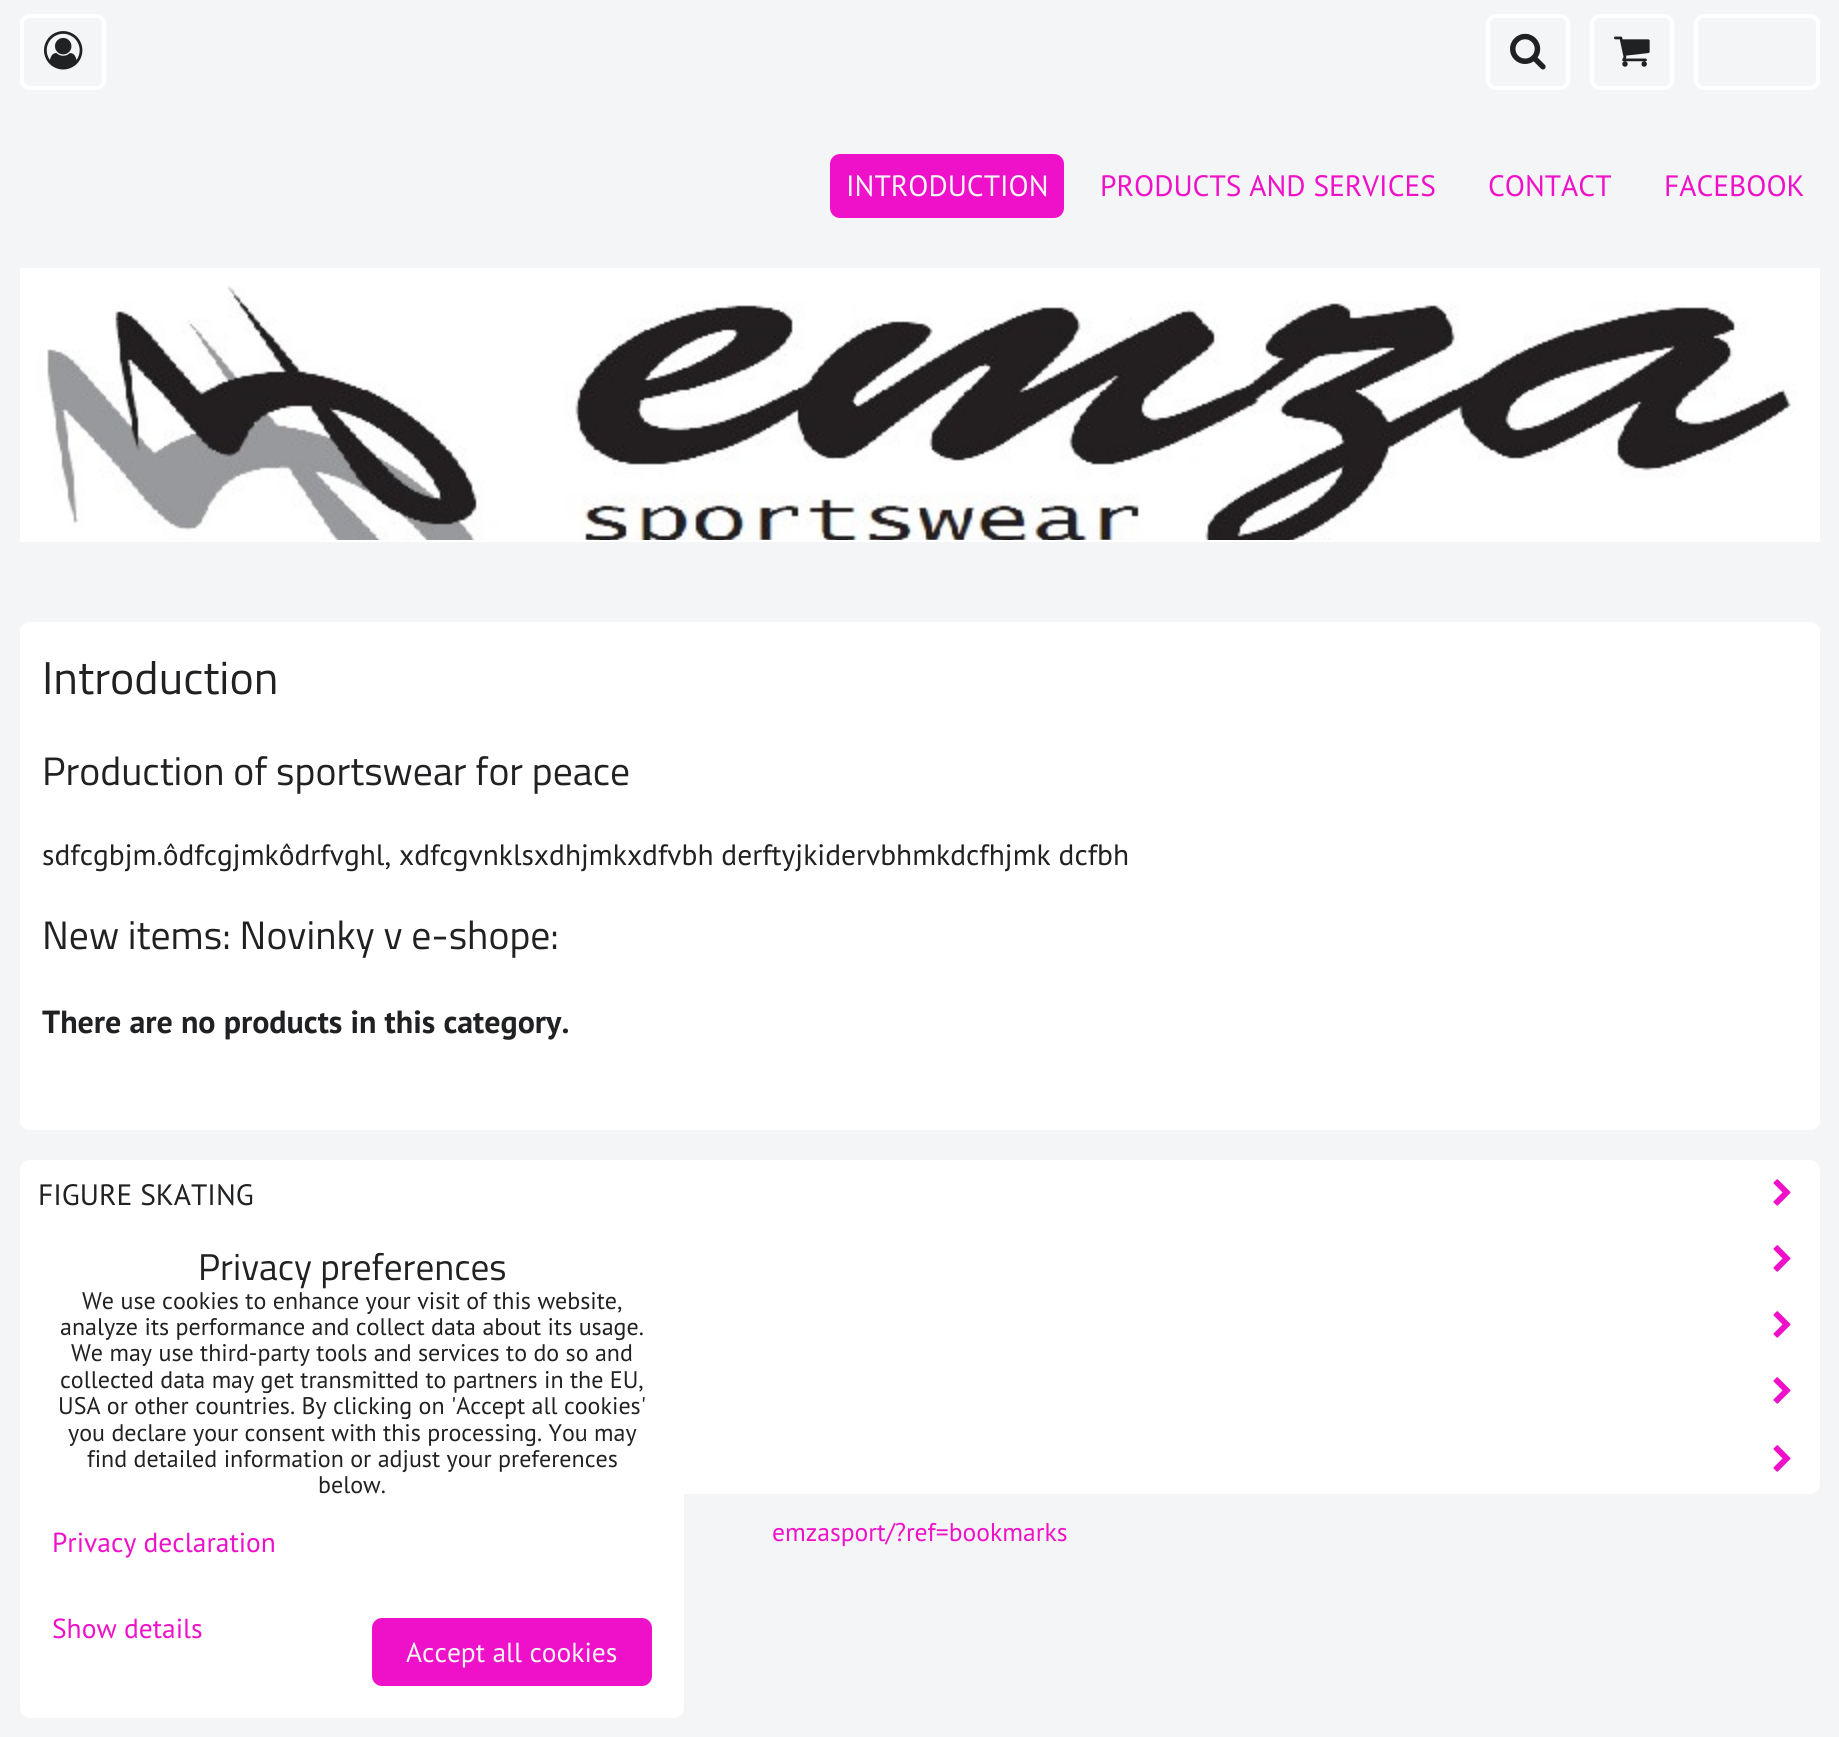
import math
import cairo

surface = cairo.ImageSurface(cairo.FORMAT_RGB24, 1839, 1737)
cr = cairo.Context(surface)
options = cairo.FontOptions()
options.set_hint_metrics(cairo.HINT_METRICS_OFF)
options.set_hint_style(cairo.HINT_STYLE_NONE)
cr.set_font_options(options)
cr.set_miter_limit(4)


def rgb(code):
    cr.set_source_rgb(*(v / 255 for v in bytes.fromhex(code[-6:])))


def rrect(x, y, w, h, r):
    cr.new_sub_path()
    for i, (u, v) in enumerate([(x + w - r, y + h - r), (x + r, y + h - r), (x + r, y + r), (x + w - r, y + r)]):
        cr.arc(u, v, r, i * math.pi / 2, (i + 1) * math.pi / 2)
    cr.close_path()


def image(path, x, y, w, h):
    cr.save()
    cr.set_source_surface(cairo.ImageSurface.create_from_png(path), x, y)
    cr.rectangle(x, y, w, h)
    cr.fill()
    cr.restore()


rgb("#f4f5f7")
cr.paint()
rrect(22, 16, 82, 72, 8)
rgb("#ffffff")
cr.set_line_width(4)
cr.stroke()
image("img/1.png", 44, 31, 39, 39)
rrect(1488, 16, 80, 72, 8)
cr.stroke()
image("img/2.png", 1510, 33, 36, 37)
rrect(1592, 16, 80, 72, 8)
cr.stroke()
image("img/3.png", 1614, 36, 36, 31)
rrect(1696, 16, 122, 72, 8)
cr.stroke()
rgb("#ee11c9")
rrect(830, 154, 234, 64, 10)
cr.fill()
rgb("#ffffff")
cr.rectangle(20, 268, 1800, 2)
cr.fill()
cr.rectangle(20, 540, 1800, 2)
cr.fill()
image("img/4.png", 20, 270, 1800, 270)
rrect(21, 623, 1798, 506, 9)
cr.fill_preserve()
cr.set_line_width(2)
cr.stroke()
rrect(21, 1161, 1798, 332, 9)
cr.fill_preserve()
cr.stroke()
image("img/5.png", 1773, 1179, 18, 27)
image("img/5.png", 1773, 1245, 18, 27)
image("img/5.png", 1773, 1311, 18, 27)
image("img/5.png", 1773, 1377, 18, 27)
image("img/5.png", 1773, 1445, 18, 27)
rrect(21, 1215, 662, 502, 9)
cr.fill_preserve()
cr.stroke()
rgb("#ee11c9")
rrect(373, 1619, 278, 66, 9)
cr.fill_preserve()
cr.stroke()
cr.select_font_face("PT Sans")
cr.set_font_size(29.45)
rgb("#f4f5f7")
cr.move_to(846, 196)
cr.show_text("INTRODUCTION")
rgb("#ee11c9")
for x, y, s in [
    (1100, 196, "PRODUCTS AND SERVICES"),
    (1488, 196, "CONTACT"),
    (1664, 196, "FACEBOOK"),
]:
    cr.move_to(x, y)
    cr.show_text(s)
cr.select_font_face("Titillium Web")
cr.set_font_size(46)
rgb("#202123")
cr.move_to(42, 694)
cr.show_text("Introduction")
cr.set_font_size(39.7)
cr.move_to(42, 785)
cr.show_text("Production of sportswear for peace")
cr.select_font_face("PT Sans")
cr.set_font_size(29.45)
cr.move_to(42, 865)
cr.show_text("sdfcgbjm.ôdfcgjmkôdrfvghl, xdfcgvnklsxdhjmkxdfvbh derftyjkidervbhmkdcfhjmk dcfbh")
cr.select_font_face("Titillium Web")
cr.set_font_size(39.7)
cr.move_to(42, 949)
cr.show_text("New items: Novinky v e-shope:")
cr.select_font_face("PT Sans", cairo.FONT_SLANT_NORMAL, cairo.FONT_WEIGHT_BOLD)
cr.set_font_size(32)
cr.move_to(42, 1033)
cr.show_text("There are no products in this category.")
cr.select_font_face("PT Sans")
cr.set_font_size(29.45)
cr.move_to(38, 1205)
cr.show_text("FIGURE SKATING")
cr.set_font_size(25.6)
rgb("#ee11c9")
cr.move_to(772, 1541)
cr.show_text("emzasport/?ref=bookmarks")
cr.select_font_face("Titillium Web")
cr.set_font_size(37.25)
rgb("#202123")
cr.move_to(198, 1280)
cr.show_text("Privacy preferences")
cr.select_font_face("PT Sans")
cr.set_font_size(24)
for x, y, s in [
    (82, 1309, "We use cookies to enhance your visit of this website,"),
    (60, 1335, "analyze its performance and collect data about its usage."),
    (71, 1361, "We may use third-party tools and services to do so and"),
    (60, 1388, "collected data may get transmitted to partners in the EU,"),
    (58, 1414, "USA or other countries. By clicking on 'Accept all cookies'"),
    (68, 1441, "you declare your consent with this processing. You may"),
    (87, 1467, "find detailed information or adjust your preferences"),
    (318, 1493, "below."),
]:
    cr.move_to(x, y)
    cr.show_text(s)
cr.set_font_size(27.5)
rgb("#ee11c9")
cr.move_to(52, 1552)
cr.show_text("Privacy declaration")
cr.move_to(52, 1638)
cr.show_text("Show details")
rgb("#f4f5f7")
cr.move_to(406, 1662)
cr.show_text("Accept all cookies")
surface.write_to_png("page.png")
